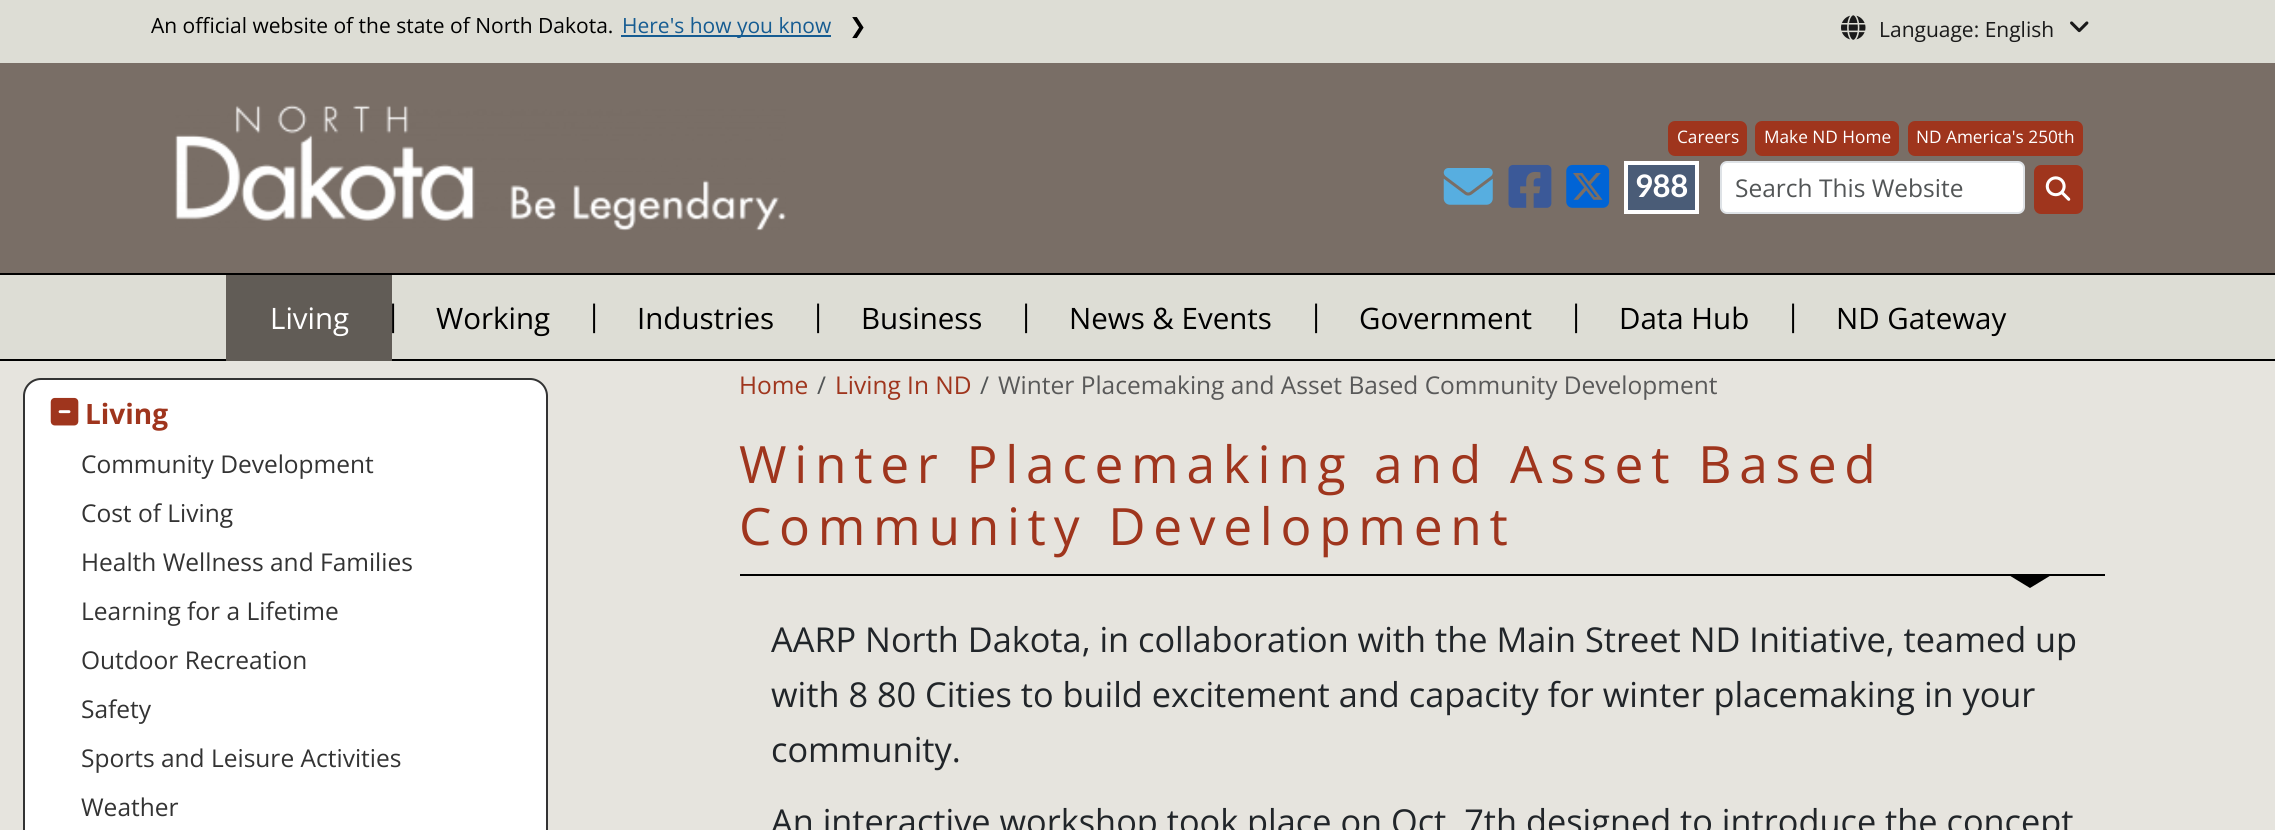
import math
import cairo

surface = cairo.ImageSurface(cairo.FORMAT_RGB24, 2275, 830)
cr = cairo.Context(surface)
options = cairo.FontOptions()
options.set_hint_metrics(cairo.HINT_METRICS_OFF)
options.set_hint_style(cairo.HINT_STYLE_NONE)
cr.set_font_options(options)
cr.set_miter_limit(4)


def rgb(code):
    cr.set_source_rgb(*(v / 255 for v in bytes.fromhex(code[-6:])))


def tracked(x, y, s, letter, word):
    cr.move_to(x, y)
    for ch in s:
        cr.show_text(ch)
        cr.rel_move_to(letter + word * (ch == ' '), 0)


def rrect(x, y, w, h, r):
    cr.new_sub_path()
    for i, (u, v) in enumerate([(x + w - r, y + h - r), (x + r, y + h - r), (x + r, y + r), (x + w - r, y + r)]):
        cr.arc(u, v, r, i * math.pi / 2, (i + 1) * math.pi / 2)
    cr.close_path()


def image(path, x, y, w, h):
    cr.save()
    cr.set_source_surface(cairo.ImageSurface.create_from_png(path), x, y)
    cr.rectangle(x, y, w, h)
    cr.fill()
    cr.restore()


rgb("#e6e4de")
cr.paint()
rgb("#ddddd5")
cr.rectangle(0, 0, 2275, 63)
cr.fill()
rgb("#165c92")
cr.rectangle(621, 35, 210, 2)
cr.fill()
image("img/1.png", 1841, 15, 25, 25)
image("img/2.png", 2070, 21, 19, 12)
rgb("#796e66")
cr.rectangle(0, 63, 2275, 210)
cr.fill()
image("img/3.png", 175, 104, 611, 127)
rgb("#9f351d")
rrect(1668, 121, 79, 35, 7)
cr.fill()
rrect(1755, 121, 144, 35, 7)
cr.fill()
rrect(1908, 121, 175, 35, 7)
cr.fill()
image("img/4.png", 1443, 168, 50, 37)
image("img/5.png", 1508, 164, 44, 44)
image("img/6.png", 1566, 164, 44, 44)
rgb("#4a5c77")
cr.rectangle(1626, 163, 71, 49)
cr.fill_preserve()
rgb("#ffffff")
cr.set_line_width(4)
cr.stroke()
rrect(1721, 162, 303, 51, 6)
cr.fill_preserve()
rgb("#dee2e6")
cr.set_line_width(2)
cr.stroke()
rgb("#9f351d")
rrect(2034, 165, 49, 49, 7)
cr.fill()
image("img/7.png", 2045, 176, 26, 25)
for x, y, w, h, color in [
    (0, 275, 2275, 84, "#ddddd5"),
    (0, 273, 2275, 2, "#000000"),
    (0, 359, 2275, 2, "#000000"),
    (226, 275, 166, 86, "#615c56"),
]:
    rgb(color)
    cr.rectangle(x, y, w, h)
    cr.fill()
rgb("#ffffff")
rrect(24, 379, 523, 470, 17)
cr.fill_preserve()
rgb("#333333")
cr.stroke()
image("img/8.png", 50, 397, 29, 29)
rgb("#000000")
cr.rectangle(740, 574, 1365, 2)
cr.fill()
cr.new_path()
cr.move_to(2007, 574)
cr.line_to(2053, 574)
cr.line_to(2030, 588)
cr.close_path()
cr.fill()
cr.select_font_face("Open Sans")
cr.set_font_size(21)
cr.move_to(151, 33)
cr.show_text("An official website of the state of North Dakota.")
rgb("#165c92")
cr.move_to(622, 33)
cr.show_text("Here's how you know")
cr.select_font_face("DejaVu Sans")
rgb("#000000")
cr.move_to(849, 33)
cr.show_text("❯")
cr.select_font_face("Open Sans")
rgb("#1a1a1a")
cr.move_to(1879, 37)
cr.show_text("Language: English")
cr.set_font_size(17.25)
rgb("#ffffff")
for x, y, s in [
    (1677, 143, "Careers"),
    (1764, 143, "Make ND Home"),
    (1916, 143, "ND America's 250th"),
]:
    cr.move_to(x, y)
    cr.show_text(s)
cr.select_font_face("Aleo", cairo.FONT_SLANT_NORMAL, cairo.FONT_WEIGHT_BOLD)
cr.set_font_size(31)
cr.move_to(1636, 197)
cr.show_text("988")
cr.select_font_face("Open Sans")
cr.set_font_size(24.5)
rgb("#525556")
cr.move_to(1735, 197)
cr.show_text("Search This Website")
cr.set_font_size(29.5)
rgb("#ffffff")
cr.move_to(270, 329)
cr.show_text("Living")
rgb("#000000")
for x, y, s in [
    (385, 326, "|"),
    (436, 329, "Working"),
    (586, 326, "|"),
    (637, 329, "Industries"),
    (810, 326, "|"),
    (861, 329, "Business"),
    (1018, 326, "|"),
    (1069, 329, "News & Events"),
    (1308, 326, "|"),
    (1359, 329, "Government"),
    (1568, 326, "|"),
    (1619, 329, "Data Hub"),
    (1785, 326, "|"),
    (1836, 329, "ND Gateway"),
]:
    cr.move_to(x, y)
    cr.show_text(s)
cr.select_font_face("Open Sans", cairo.FONT_SLANT_NORMAL, cairo.FONT_WEIGHT_BOLD)
cr.set_font_size(28)
rgb("#9f351d")
cr.move_to(85, 424)
cr.show_text("Living")
cr.select_font_face("Open Sans")
cr.set_font_size(24.5)
rgb("#333333")
for x, y, s in [
    (81, 473, "Community Development"),
    (81, 522, "Cost of Living"),
    (81, 571, "Health Wellness and Families"),
    (81, 620, "Learning for a Lifetime"),
    (81, 669, "Outdoor Recreation"),
    (81, 718, "Safety"),
    (81, 767, "Sports and Leisure Activities"),
    (81, 816, "Weather"),
]:
    cr.move_to(x, y)
    cr.show_text(s)
rgb("#9f351d")
cr.move_to(739, 394)
cr.show_text("Home")
rgb("#525556")
cr.move_to(817, 394)
cr.show_text("/")
rgb("#9f351d")
cr.move_to(835, 394)
cr.show_text("Living In ND")
rgb("#525556")
cr.move_to(980, 394)
cr.show_text("/")
rgb("#595959")
cr.move_to(998, 394)
cr.show_text("Winter Placemaking and Asset Based Community Development")
cr.set_font_size(51.45)
rgb("#9f351d")
tracked(739, 483, "Winter Placemaking and Asset Based", 7.7, 0)
tracked(739, 545, "Community Development", 7.7, 0)
cr.set_font_size(34.3)
rgb("#212529")
for x, y, s in [
    (771, 652, "AARP North Dakota, in collaboration with the Main Street ND Initiative, teamed up"),
    (771, 707, "with 8 80 Cities to build excitement and capacity for winter placemaking in your"),
    (771, 762, "community."),
    (771, 834, "An interactive workshop took place on Oct. 7th designed to introduce the concept"),
]:
    cr.move_to(x, y)
    cr.show_text(s)
surface.write_to_png("page.png")
